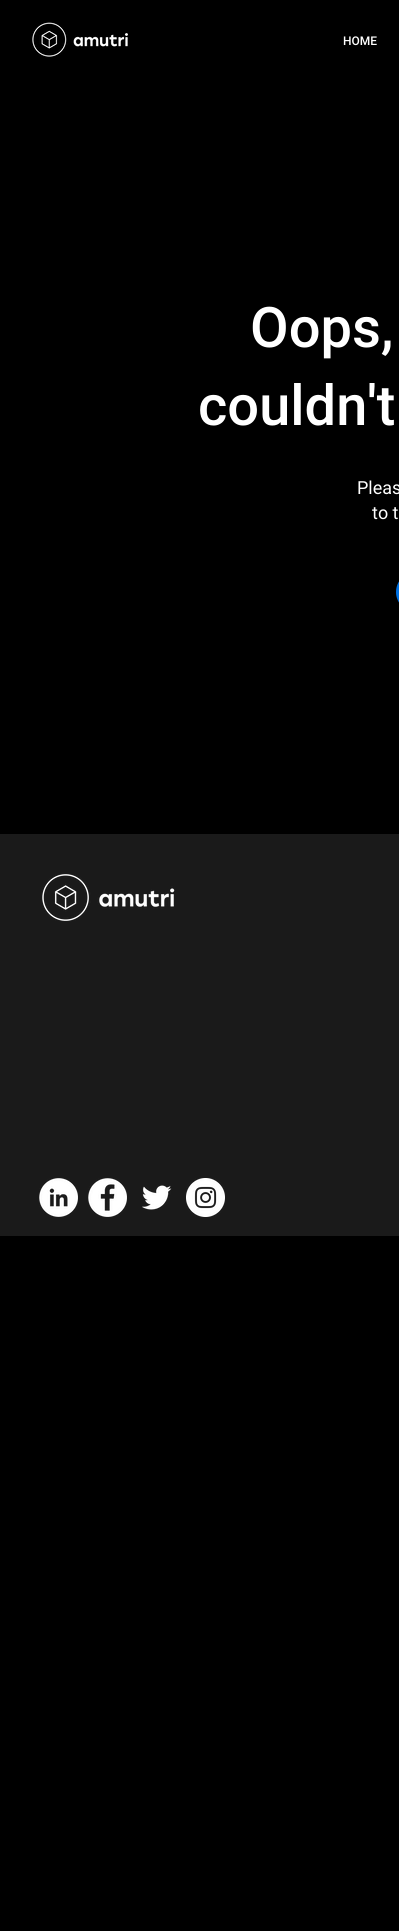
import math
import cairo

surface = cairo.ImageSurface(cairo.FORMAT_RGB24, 399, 1931)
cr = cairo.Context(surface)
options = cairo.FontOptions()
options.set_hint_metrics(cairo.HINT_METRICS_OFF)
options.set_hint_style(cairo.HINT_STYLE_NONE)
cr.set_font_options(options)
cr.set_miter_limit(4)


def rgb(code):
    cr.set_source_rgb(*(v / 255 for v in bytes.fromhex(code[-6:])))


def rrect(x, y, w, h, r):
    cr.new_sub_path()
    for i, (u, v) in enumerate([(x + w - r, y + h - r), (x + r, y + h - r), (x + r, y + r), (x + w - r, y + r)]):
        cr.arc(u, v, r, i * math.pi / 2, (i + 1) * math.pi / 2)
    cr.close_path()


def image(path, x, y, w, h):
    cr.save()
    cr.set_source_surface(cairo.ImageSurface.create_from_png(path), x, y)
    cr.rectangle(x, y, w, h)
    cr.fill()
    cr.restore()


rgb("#000000")
cr.paint()
image("img/1.png", 32, 22, 96, 35)
rgb("#0071e3")
rrect(396, 572, 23, 40, 20)
cr.fill()
rgb("#1a1a1a")
cr.rectangle(0, 834, 399, 402)
cr.fill()
image("img/2.png", 42, 874, 133, 47)
image("img/3.png", 39, 1178, 39, 39)
image("img/4.png", 88, 1178, 39, 39)
image("img/5.png", 142, 1185, 30, 25)
image("img/6.png", 186, 1178, 39, 39)
cr.select_font_face("Roboto Medium")
cr.set_font_size(12)
rgb("#ffffff")
cr.move_to(343, 45)
cr.show_text("HOME")
cr.set_font_size(56)
cr.move_to(250, 347)
cr.show_text("Oops,")
cr.move_to(198, 425)
cr.show_text("couldn't")
cr.select_font_face("Roboto")
cr.set_font_size(18)
cr.move_to(357, 494)
cr.show_text("Pleas")
cr.move_to(372, 519)
cr.show_text("to t")
surface.write_to_png("page.png")
